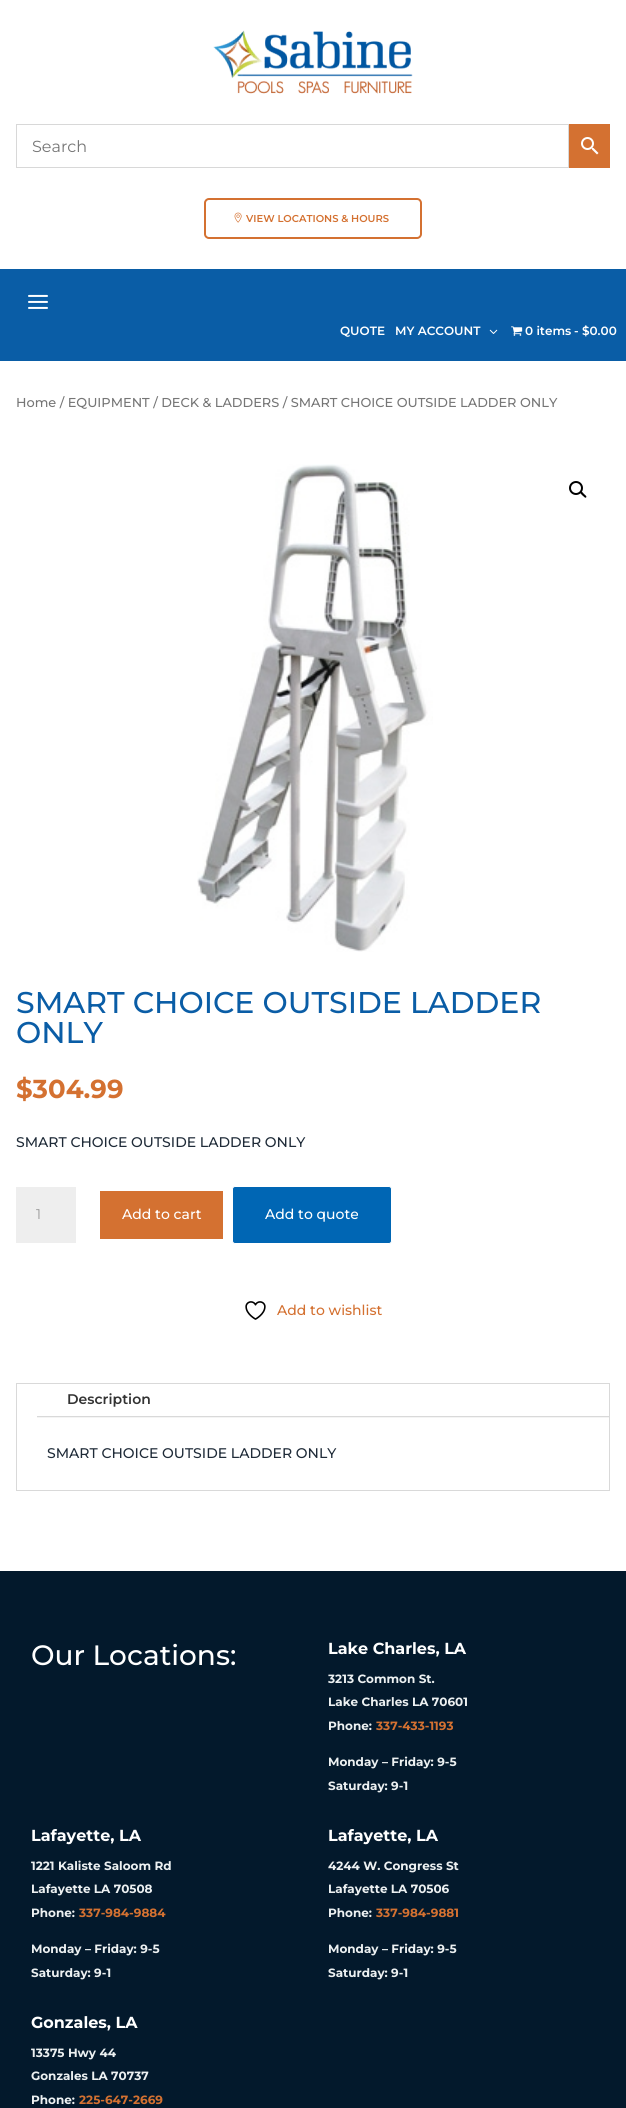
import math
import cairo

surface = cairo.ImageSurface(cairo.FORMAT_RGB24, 626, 2108)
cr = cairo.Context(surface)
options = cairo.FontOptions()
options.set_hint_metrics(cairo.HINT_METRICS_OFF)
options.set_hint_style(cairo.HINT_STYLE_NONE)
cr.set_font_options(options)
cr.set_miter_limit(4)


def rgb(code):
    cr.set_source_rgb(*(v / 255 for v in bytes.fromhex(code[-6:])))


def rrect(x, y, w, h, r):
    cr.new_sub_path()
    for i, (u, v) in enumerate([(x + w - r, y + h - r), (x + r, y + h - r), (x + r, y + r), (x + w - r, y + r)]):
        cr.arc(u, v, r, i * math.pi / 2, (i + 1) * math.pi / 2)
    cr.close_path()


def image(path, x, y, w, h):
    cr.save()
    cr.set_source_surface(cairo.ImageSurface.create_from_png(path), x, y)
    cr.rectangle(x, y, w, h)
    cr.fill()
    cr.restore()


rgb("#ffffff")
cr.paint()
image("img/1.png", 213, 30, 200, 64)
cr.rectangle(16.5, 124.5, 552, 43)
rgb("#d8d8d8")
cr.set_line_width(1)
cr.stroke()
rgb("#d47131")
cr.rectangle(569, 124, 41, 44)
cr.fill()
image("img/2.png", 581, 137, 18, 18)
rrect(205, 199, 216, 39, 4)
cr.set_line_width(2)
cr.stroke()
image("img/3.png", 234, 212, 8, 11)
rgb("#0a5da6")
cr.rectangle(0, 269, 626, 92)
cr.fill()
image("img/4.png", 28, 294, 20, 15)
image("img/5.png", 489, 329, 9, 5)
image("img/6.png", 511, 326, 12, 10)
image("img/7.png", 197, 464, 236, 488)
cr.arc(576, 488, 6, 0, 2 * math.pi)
rgb("#000000")
cr.stroke()
cr.new_path()
cr.move_to(580.5, 492)
cr.curve_to(581.5, 490.5, 583.5, 493.5, 584, 494)
cr.curve_to(584.5, 494.5, 587.5, 496.5, 586, 497.5)
cr.curve_to(585, 498.5, 583.5, 496, 582.5, 495.5)
cr.curve_to(582, 495, 579.5, 493, 580.5, 492)
cr.close_path()
cr.fill()
rgb("#eeeeee")
cr.rectangle(16, 1187, 60, 56)
cr.fill()
rgb("#d47131")
cr.rectangle(108, 1199, 107, 32)
cr.fill()
cr.new_path()
cr.move_to(104, 1195)
cr.line_to(219, 1195)
cr.line_to(219, 1235)
cr.line_to(104, 1235)
cr.close_path()
cr.set_line_width(8)
cr.stroke()
rgb("#0066b4")
rrect(232.5, 1186.5, 159, 57, 2.5)
cr.fill_preserve()
rgb("#ffffff")
cr.set_line_width(1)
cr.stroke()
image("img/8.png", 245, 1301, 21, 19)
cr.rectangle(16.5, 1383.5, 593, 107)
rgb("#d9d9d9")
cr.stroke()
for x, y, w, h, color in [
    (37, 1417, 572, 1, "#f4f4f4"),
    (37, 1416, 572, 1, "#d9d9d9"),
    (0, 1571, 626, 537, "#03192c"),
]:
    rgb(color)
    cr.rectangle(x, y, w, h)
    cr.fill()
cr.select_font_face("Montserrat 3 Thin")
cr.set_font_size(16)
rgb("#767676")
cr.move_to(32, 152)
cr.show_text("Search")
cr.select_font_face("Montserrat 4 Thin")
cr.set_font_size(10)
rgb("#d47131")
cr.move_to(246, 222)
cr.show_text("VIEW LOCATIONS & HOURS")
cr.set_font_size(12)
rgb("#ffffff")
for x, y, s in [
    (340, 335, "QUOTE"),
    (395, 335, "MY ACCOUNT"),
    (525, 335, "0 items"),
    (574, 335, "-"),
    (582, 335, "$0.00"),
]:
    cr.move_to(x, y)
    cr.show_text(s)
cr.select_font_face("Montserrat Thin")
cr.set_font_size(12.9)
rgb("#767676")
cr.move_to(16, 407)
cr.show_text("Home / EQUIPMENT / DECK & LADDERS / SMART CHOICE OUTSIDE LADDER ONLY")
cr.set_font_size(30)
rgb("#0a5da6")
cr.move_to(16, 1013)
cr.show_text("SMART CHOICE OUTSIDE LADDER")
cr.move_to(16, 1043)
cr.show_text("ONLY")
cr.select_font_face("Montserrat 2 Thin")
cr.set_font_size(26)
rgb("#d47131")
cr.move_to(16, 1098)
cr.show_text("$304.99")
cr.select_font_face("Montserrat Thin")
cr.set_font_size(14)
rgb("#1f2b38")
cr.move_to(16, 1147)
cr.show_text("SMART CHOICE OUTSIDE LADDER ONLY")
cr.select_font_face("Montserrat 3 Thin")
rgb("#999999")
cr.move_to(36, 1219)
cr.show_text("1")
cr.select_font_face("Montserrat Thin")
rgb("#ffffff")
cr.move_to(122, 1219)
cr.show_text("Add to cart")
cr.move_to(265, 1219)
cr.show_text("Add to quote")
rgb("#d47131")
cr.move_to(277, 1315)
cr.show_text("Add to wishlist")
cr.select_font_face("Montserrat 4 Thin")
rgb("#333333")
cr.move_to(67, 1404)
cr.show_text("Description")
cr.select_font_face("Montserrat Thin")
rgb("#1f2b38")
cr.move_to(47, 1458)
cr.show_text("SMART CHOICE OUTSIDE LADDER ONLY")
cr.set_font_size(28)
rgb("#ffffff")
cr.move_to(31, 1665)
cr.show_text("Our Locations:")
cr.select_font_face("Montserrat 2 Thin")
cr.set_font_size(16)
cr.move_to(328, 1654)
cr.show_text("Lake Charles, LA")
cr.set_font_size(12)
rgb("#ecf0f1")
for x, y, s in [
    (328, 1683, "3213 Common St."),
    (328, 1706, "Lake Charles LA 70601"),
    (328, 1730, "Phone:"),
]:
    cr.move_to(x, y)
    cr.show_text(s)
rgb("#d47131")
cr.move_to(376, 1730)
cr.show_text("337-433-1193")
rgb("#ecf0f1")
cr.move_to(328, 1766)
cr.show_text("Monday – Friday: 9-5")
cr.move_to(328, 1790)
cr.show_text("Saturday: 9-1")
cr.set_font_size(16)
rgb("#ffffff")
cr.move_to(31, 1841)
cr.show_text("Lafayette, LA")
cr.set_font_size(12)
rgb("#ecf0f1")
for x, y, s in [
    (31, 1870, "1221 Kaliste Saloom Rd"),
    (31, 1893, "Lafayette LA 70508"),
    (31, 1917, "Phone:"),
]:
    cr.move_to(x, y)
    cr.show_text(s)
rgb("#d47131")
cr.move_to(79, 1917)
cr.show_text("337-984-9884")
rgb("#ecf0f1")
cr.move_to(31, 1953)
cr.show_text("Monday – Friday: 9-5")
cr.move_to(31, 1977)
cr.show_text("Saturday: 9-1")
cr.set_font_size(16)
rgb("#ffffff")
cr.move_to(328, 1841)
cr.show_text("Lafayette, LA")
cr.set_font_size(12)
rgb("#ecf0f1")
for x, y, s in [
    (328, 1870, "4244 W. Congress St"),
    (328, 1893, "Lafayette LA 70506"),
    (328, 1917, "Phone:"),
]:
    cr.move_to(x, y)
    cr.show_text(s)
rgb("#d47131")
cr.move_to(376, 1917)
cr.show_text("337-984-9881")
rgb("#ecf0f1")
cr.move_to(328, 1953)
cr.show_text("Monday – Friday: 9-5")
cr.move_to(328, 1977)
cr.show_text("Saturday: 9-1")
cr.set_font_size(16)
rgb("#ffffff")
cr.move_to(31, 2028)
cr.show_text("Gonzales, LA")
cr.set_font_size(12)
rgb("#ecf0f1")
for x, y, s in [
    (31, 2057, "13375 Hwy 44"),
    (31, 2080, "Gonzales LA 70737"),
    (31, 2104, "Phone:"),
]:
    cr.move_to(x, y)
    cr.show_text(s)
rgb("#d47131")
cr.move_to(79, 2104)
cr.show_text("225-647-2669")
surface.write_to_png("page.png")
